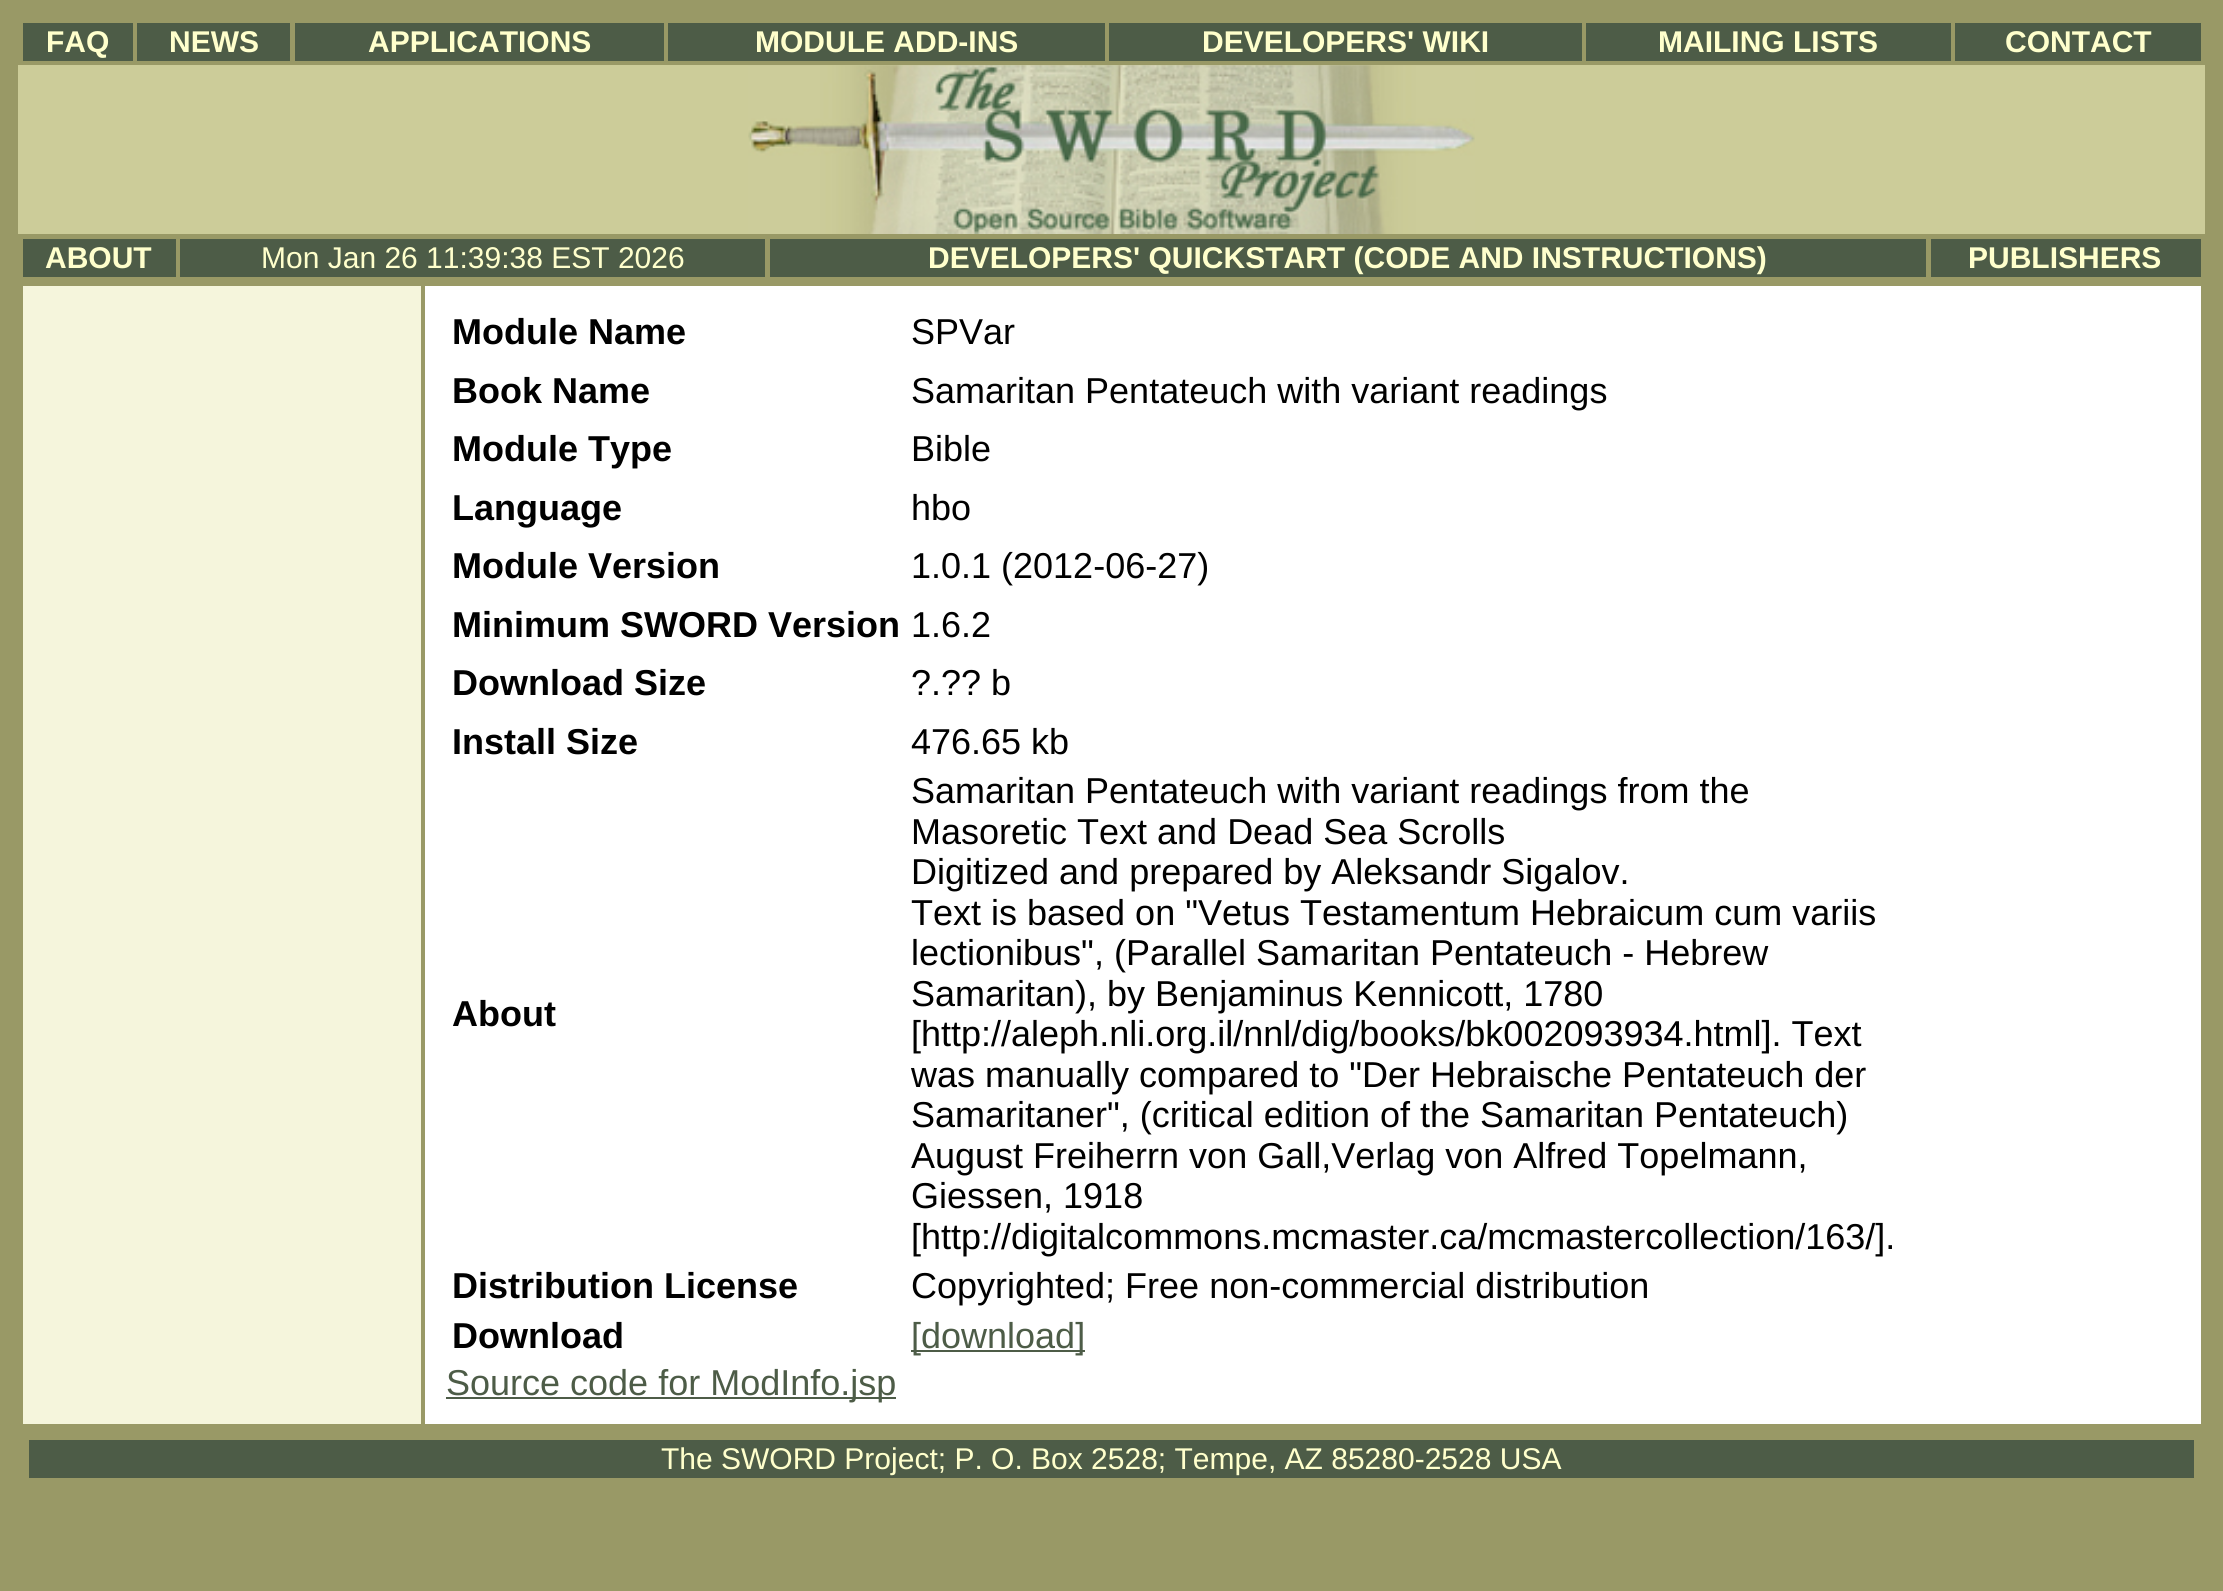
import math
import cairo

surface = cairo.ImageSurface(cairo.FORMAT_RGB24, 2223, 1591)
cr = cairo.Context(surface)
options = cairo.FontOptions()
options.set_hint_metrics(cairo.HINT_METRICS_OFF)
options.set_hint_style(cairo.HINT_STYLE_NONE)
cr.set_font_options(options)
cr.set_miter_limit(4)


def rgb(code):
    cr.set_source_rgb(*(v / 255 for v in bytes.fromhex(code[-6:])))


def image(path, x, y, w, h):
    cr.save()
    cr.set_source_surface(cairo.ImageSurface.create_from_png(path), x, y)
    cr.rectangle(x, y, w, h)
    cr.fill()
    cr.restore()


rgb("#999966")
cr.paint()
for x, y, w, h, color in [
    (23, 23, 110, 38, "#4d5c47"),
    (137, 23, 153, 38, "#4d5c47"),
    (295, 23, 369, 38, "#4d5c47"),
    (668, 23, 437, 38, "#4d5c47"),
    (1109, 23, 473, 38, "#4d5c47"),
    (1586, 23, 365, 38, "#4d5c47"),
    (1955, 23, 246, 38, "#4d5c47"),
    (18, 65, 2187, 169, "#cccc99"),
]:
    rgb(color)
    cr.rectangle(x, y, w, h)
    cr.fill()
image("img/1.png", 748, 65, 727, 169)
for x, y, w, h, color in [
    (23, 239, 153, 38, "#4d5c47"),
    (180, 239, 585, 38, "#4d5c47"),
    (770, 239, 1156, 38, "#4d5c47"),
    (1931, 239, 270, 38, "#4d5c47"),
    (23, 286, 398, 1138, "#f5f5dc"),
    (425, 286, 1776, 1138, "#ffffff"),
    (911, 1350, 174, 2, "#4d5c47"),
    (446, 1397, 450, 2, "#4d5c47"),
    (29, 1440, 2165, 38, "#4d5c47"),
]:
    rgb(color)
    cr.rectangle(x, y, w, h)
    cr.fill()
cr.select_font_face("Liberation Sans", cairo.FONT_SLANT_NORMAL, cairo.FONT_WEIGHT_BOLD)
cr.set_font_size(30)
rgb("#ffffcc")
for x, y, s in [
    (46, 52, "FAQ"),
    (169, 52, "NEWS"),
    (368, 52, "APPLICATIONS"),
    (755, 52, "MODULE ADD-INS"),
    (1202, 52, "DEVELOPERS' WIKI"),
    (1658, 52, "MAILING LISTS"),
    (2005, 52, "CONTACT"),
    (45, 268, "ABOUT"),
]:
    cr.move_to(x, y)
    cr.show_text(s)
cr.select_font_face("Liberation Sans")
cr.move_to(261, 268)
cr.show_text("Mon Jan 26 11:39:38 EST 2026")
cr.select_font_face("Liberation Sans", cairo.FONT_SLANT_NORMAL, cairo.FONT_WEIGHT_BOLD)
cr.move_to(928, 268)
cr.show_text("DEVELOPERS' QUICKSTART (CODE AND INSTRUCTIONS)")
cr.move_to(1968, 268)
cr.show_text("PUBLISHERS")
cr.set_font_size(36)
rgb("#000000")
cr.move_to(452, 344)
cr.show_text("Module Name")
cr.select_font_face("Liberation Sans")
cr.move_to(911, 344)
cr.show_text("SPVar")
cr.select_font_face("Liberation Sans", cairo.FONT_SLANT_NORMAL, cairo.FONT_WEIGHT_BOLD)
cr.move_to(452, 403)
cr.show_text("Book Name")
cr.select_font_face("Liberation Sans")
cr.move_to(911, 403)
cr.show_text("Samaritan Pentateuch with variant readings")
cr.select_font_face("Liberation Sans", cairo.FONT_SLANT_NORMAL, cairo.FONT_WEIGHT_BOLD)
cr.move_to(452, 461)
cr.show_text("Module Type")
cr.select_font_face("Liberation Sans")
cr.move_to(911, 461)
cr.show_text("Bible")
cr.select_font_face("Liberation Sans", cairo.FONT_SLANT_NORMAL, cairo.FONT_WEIGHT_BOLD)
cr.move_to(452, 520)
cr.show_text("Language")
cr.select_font_face("Liberation Sans")
cr.move_to(911, 520)
cr.show_text("hbo")
cr.select_font_face("Liberation Sans", cairo.FONT_SLANT_NORMAL, cairo.FONT_WEIGHT_BOLD)
cr.move_to(452, 578)
cr.show_text("Module Version")
cr.select_font_face("Liberation Sans")
cr.move_to(911, 578)
cr.show_text("1.0.1 (2012-06-27)")
cr.select_font_face("Liberation Sans", cairo.FONT_SLANT_NORMAL, cairo.FONT_WEIGHT_BOLD)
cr.move_to(452, 637)
cr.show_text("Minimum SWORD Version")
cr.select_font_face("Liberation Sans")
cr.move_to(911, 637)
cr.show_text("1.6.2")
cr.select_font_face("Liberation Sans", cairo.FONT_SLANT_NORMAL, cairo.FONT_WEIGHT_BOLD)
cr.move_to(452, 695)
cr.show_text("Download Size")
cr.select_font_face("Liberation Sans")
cr.move_to(911, 695)
cr.show_text("?.?? b")
cr.select_font_face("Liberation Sans", cairo.FONT_SLANT_NORMAL, cairo.FONT_WEIGHT_BOLD)
cr.move_to(452, 754)
cr.show_text("Install Size")
cr.select_font_face("Liberation Sans")
cr.move_to(911, 754)
cr.show_text("476.65 kb")
cr.select_font_face("Liberation Sans", cairo.FONT_SLANT_NORMAL, cairo.FONT_WEIGHT_BOLD)
cr.move_to(452, 1026)
cr.show_text("About")
cr.select_font_face("Liberation Sans")
for x, y, s in [
    (911, 803, "Samaritan Pentateuch with variant readings from the"),
    (911, 844, "Masoretic Text and Dead Sea Scrolls"),
    (911, 884, "Digitized and prepared by Aleksandr Sigalov."),
    (911, 925, "Text is based on \"Vetus Testamentum Hebraicum cum variis"),
    (911, 965, "lectionibus\", (Parallel Samaritan Pentateuch - Hebrew"),
    (911, 1006, "Samaritan), by Benjaminus Kennicott, 1780"),
    (911, 1046, "[http://aleph.nli.org.il/nnl/dig/books/bk002093934.html]. Text"),
    (911, 1087, "was manually compared to \"Der Hebraische Pentateuch der"),
    (911, 1127, "Samaritaner\", (critical edition of the Samaritan Pentateuch)"),
    (911, 1168, "August Freiherrn von Gall,Verlag von Alfred Topelmann,"),
    (911, 1208, "Giessen, 1918"),
    (911, 1249, "[http://digitalcommons.mcmaster.ca/mcmastercollection/163/]."),
]:
    cr.move_to(x, y)
    cr.show_text(s)
cr.select_font_face("Liberation Sans", cairo.FONT_SLANT_NORMAL, cairo.FONT_WEIGHT_BOLD)
cr.move_to(452, 1298)
cr.show_text("Distribution License")
cr.select_font_face("Liberation Sans")
cr.move_to(911, 1298)
cr.show_text("Copyrighted; Free non-commercial distribution")
cr.select_font_face("Liberation Sans", cairo.FONT_SLANT_NORMAL, cairo.FONT_WEIGHT_BOLD)
cr.move_to(452, 1348)
cr.show_text("Download")
cr.select_font_face("Liberation Sans")
rgb("#4d5c47")
cr.move_to(911, 1348)
cr.show_text("[download]")
cr.move_to(446, 1395)
cr.show_text("Source code for ModInfo.jsp")
cr.set_font_size(30)
rgb("#ffffcc")
cr.move_to(661, 1469)
cr.show_text("The SWORD Project; P. O. Box 2528; Tempe, AZ 85280-2528 USA")
surface.write_to_png("page.png")
